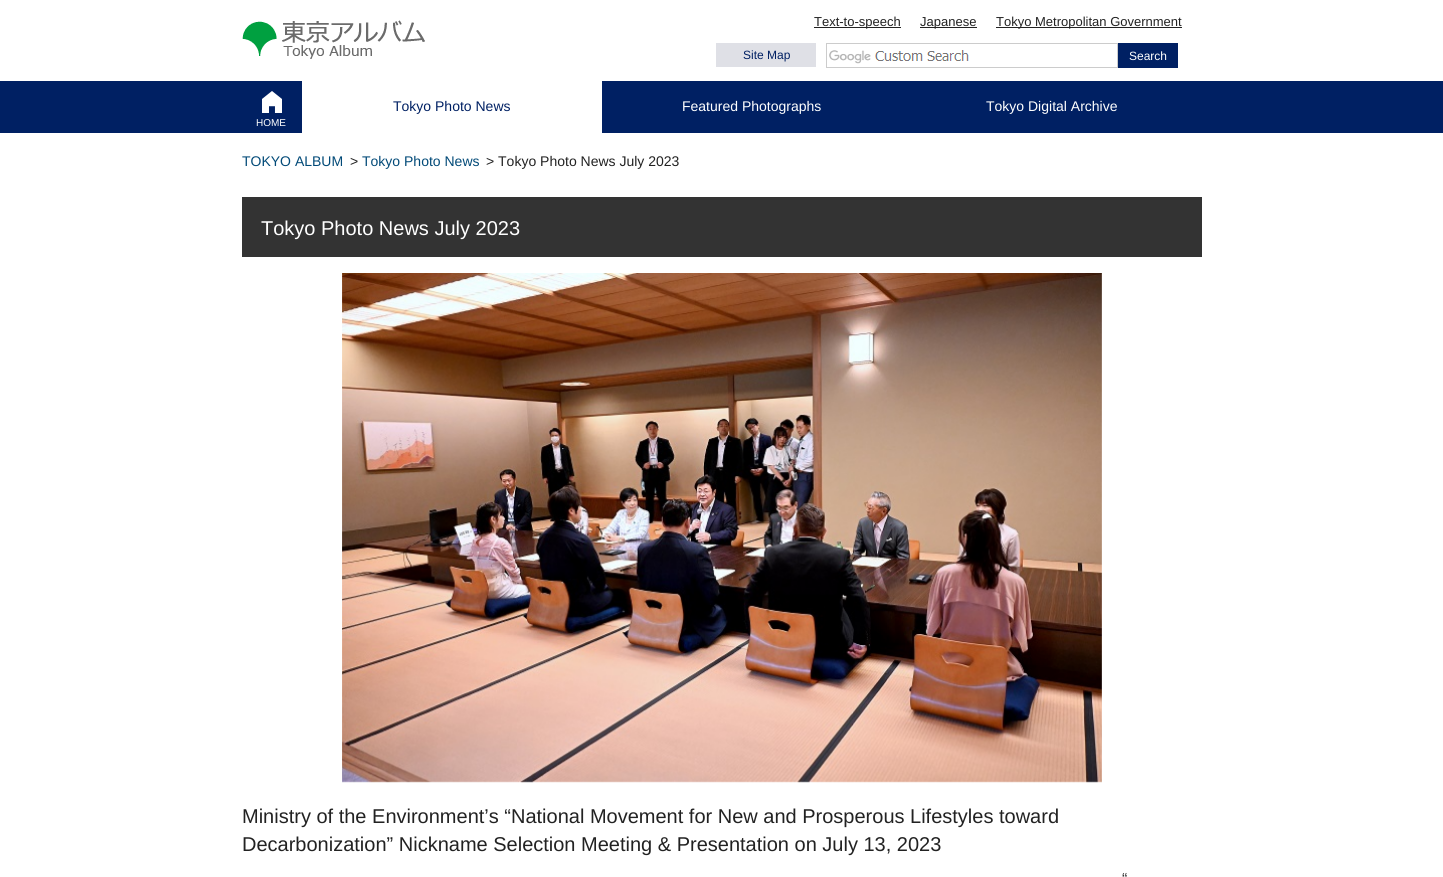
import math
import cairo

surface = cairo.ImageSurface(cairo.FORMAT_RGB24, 1443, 877)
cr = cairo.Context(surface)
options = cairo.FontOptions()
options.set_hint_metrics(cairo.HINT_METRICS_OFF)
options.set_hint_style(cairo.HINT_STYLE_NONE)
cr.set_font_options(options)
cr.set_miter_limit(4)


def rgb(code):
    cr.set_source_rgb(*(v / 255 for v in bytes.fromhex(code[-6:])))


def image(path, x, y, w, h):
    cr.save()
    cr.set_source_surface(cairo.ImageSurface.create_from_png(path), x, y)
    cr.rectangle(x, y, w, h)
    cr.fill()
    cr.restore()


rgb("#ffffff")
cr.paint()
image("img/1.png", 242, 20, 183, 39)
for x, y, w, h, color in [
    (814, 27, 87, 1, "#222222"),
    (920, 27, 57, 1, "#222222"),
    (996, 27, 186, 1, "#222222"),
    (716, 43, 100, 24, "#dfe0e6"),
]:
    rgb(color)
    cr.rectangle(x, y, w, h)
    cr.fill()
image("img/2.png", 829, 50, 140, 14)
cr.rectangle(826.5, 43.5, 291, 24)
rgb("#cccccc")
cr.set_line_width(1)
cr.stroke()
for x, y, w, h, color in [
    (1118, 43, 60, 25, "#002063"),
    (0, 81, 1443, 52, "#002063"),
    (302, 81, 300, 52, "#ffffff"),
]:
    rgb(color)
    cr.rectangle(x, y, w, h)
    cr.fill()
image("img/3.png", 262, 91, 20, 22)
rgb("#333333")
cr.rectangle(242, 197, 960, 60)
cr.fill()
image("img/4.png", 342, 273, 760, 510)
cr.select_font_face("Liberation Sans")
cr.set_font_size(13)
rgb("#222222")
for x, y, s in [
    (814, 26, "Text-to-speech"),
    (920, 26, "Japanese"),
    (996, 26, "Tokyo Metropolitan Government"),
]:
    cr.move_to(x, y)
    cr.show_text(s)
cr.set_font_size(12)
rgb("#002063")
cr.move_to(743, 59)
cr.show_text("Site Map")
rgb("#ffffff")
cr.move_to(1129, 60)
cr.show_text("Search")
cr.set_font_size(14)
rgb("#002063")
cr.move_to(393, 111)
cr.show_text("Tokyo Photo News")
rgb("#ffffff")
cr.move_to(682, 111)
cr.show_text("Featured Photographs")
cr.move_to(986, 111)
cr.show_text("Tokyo Digital Archive")
cr.set_font_size(10)
cr.move_to(256, 126)
cr.show_text("HOME")
cr.set_font_size(14)
rgb("#024a78")
cr.move_to(242, 166)
cr.show_text("TOKYO ALBUM")
rgb("#222222")
cr.move_to(350, 166)
cr.show_text(">")
rgb("#024a78")
cr.move_to(362, 166)
cr.show_text("Tokyo Photo News")
rgb("#222222")
cr.move_to(486, 166)
cr.show_text("> Tokyo Photo News July 2023")
cr.set_font_size(20)
rgb("#ffffff")
cr.move_to(261, 235)
cr.show_text("Tokyo Photo News July 2023")
rgb("#222222")
cr.move_to(242, 823)
cr.show_text("Ministry of the Environment’s “National Movement for New and Prosperous Lifestyles toward")
cr.move_to(242, 851)
cr.show_text("Decarbonization” Nickname Selection Meeting & Presentation on July 13, 2023")
cr.set_font_size(16)
rgb("#333333")
cr.move_to(1122, 884)
cr.show_text("“")
surface.write_to_png("page.png")
